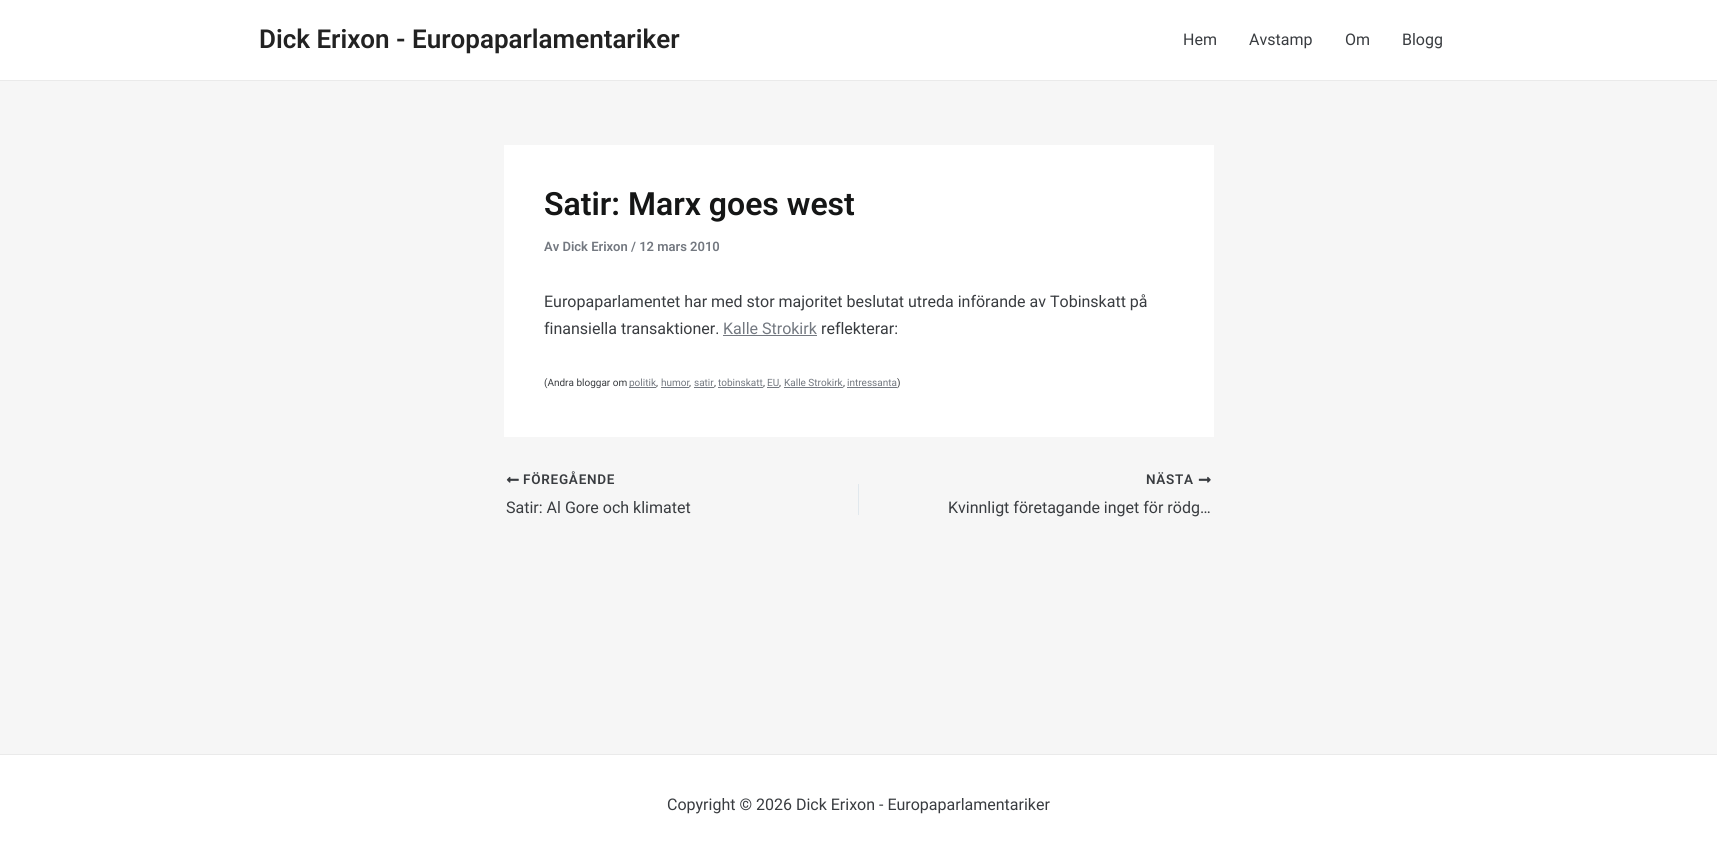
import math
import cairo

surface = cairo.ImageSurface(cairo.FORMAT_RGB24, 1717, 855)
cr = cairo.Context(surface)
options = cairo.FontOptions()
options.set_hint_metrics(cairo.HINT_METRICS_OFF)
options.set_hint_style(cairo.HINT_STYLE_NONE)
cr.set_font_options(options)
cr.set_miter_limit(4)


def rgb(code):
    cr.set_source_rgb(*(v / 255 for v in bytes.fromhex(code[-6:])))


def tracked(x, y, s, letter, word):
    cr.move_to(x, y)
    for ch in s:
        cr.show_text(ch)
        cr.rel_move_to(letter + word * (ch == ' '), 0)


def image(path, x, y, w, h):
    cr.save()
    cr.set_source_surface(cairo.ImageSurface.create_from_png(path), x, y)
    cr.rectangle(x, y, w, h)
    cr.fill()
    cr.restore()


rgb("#f6f6f6")
cr.paint()
for x, y, w, h, color in [
    (0, 0, 1717, 80, "#ffffff"),
    (0, 80, 1717, 1, "#eaeaea"),
    (504, 145, 710, 292, "#ffffff"),
    (723, 335, 94, 1, "#737880"),
    (629, 387, 27, 1, "#737880"),
    (661, 387, 28, 1, "#737880"),
    (694, 387, 20, 1, "#737880"),
    (718, 387, 45, 1, "#737880"),
    (767, 387, 12, 1, "#737880"),
    (784, 387, 59, 1, "#737880"),
    (847, 387, 50, 1, "#737880"),
]:
    rgb(color)
    cr.rectangle(x, y, w, h)
    cr.fill()
image("img/1.png", 506, 476, 13, 7)
rgb("#e1e8ed")
cr.rectangle(858, 484, 1, 31)
cr.fill()
image("img/2.png", 1198, 476, 13, 7)
rgb("#ffffff")
cr.rectangle(0, 755, 1717, 100)
cr.fill()
rgb("#eaeaea")
cr.rectangle(0, 754, 1717, 1)
cr.fill()
cr.select_font_face("Roboto SemiBold")
cr.set_font_size(26)
rgb("#222222")
cr.move_to(259, 48)
cr.show_text("Dick Erixon - Europaparlamentariker")
cr.select_font_face("Roboto")
cr.set_font_size(16)
rgb("#393c40")
for x, y, s in [
    (1183, 45, "Hem"),
    (1249, 45, "Avstamp"),
    (1345, 45, "Om"),
    (1402, 45, "Blogg"),
]:
    cr.move_to(x, y)
    cr.show_text(s)
cr.select_font_face("Roboto SemiBold")
cr.set_font_size(32)
rgb("#151616")
cr.move_to(544, 215)
cr.show_text("Satir: Marx goes west")
cr.set_font_size(13)
rgb("#737880")
cr.move_to(544, 251)
cr.show_text("Av Dick Erixon / 12 mars 2010")
cr.select_font_face("Roboto")
cr.set_font_size(16)
rgb("#393c40")
cr.move_to(544, 307)
cr.show_text("Europaparlamentet har med stor majoritet beslutat utreda införande av Tobinskatt på")
cr.move_to(544, 334)
cr.show_text("finansiella transaktioner.")
rgb("#737880")
cr.move_to(723, 334)
cr.show_text("Kalle Strokirk")
rgb("#393c40")
cr.move_to(821, 334)
cr.show_text("reflekterar:")
cr.set_font_size(10)
cr.move_to(544, 386)
cr.show_text("(Andra bloggar om")
rgb("#737880")
for x, y, s in [
    (629, 386, "politik"),
    (661, 386, "humor"),
    (694, 386, "satir"),
    (718, 386, "tobinskatt"),
    (767, 386, "EU"),
    (784, 386, "Kalle Strokirk"),
    (847, 386, "intressanta"),
]:
    cr.move_to(x, y)
    cr.show_text(s)
rgb("#393c40")
for x, y, s in [
    (897, 386, ")"),
    (656, 386, ","),
    (689, 386, ","),
    (714, 386, ","),
    (763, 386, ","),
    (779, 386, ","),
    (843, 386, ","),
]:
    cr.move_to(x, y)
    cr.show_text(s)
cr.select_font_face("Roboto SemiBold")
cr.set_font_size(13.5)
tracked(523, 484, "FÖREGÅENDE", 0.75, 0)
cr.select_font_face("Roboto")
cr.set_font_size(16)
cr.move_to(506, 513)
cr.show_text("Satir: Al Gore och klimatet")
cr.select_font_face("Roboto SemiBold")
cr.set_font_size(13.5)
tracked(1146, 484, "NÄSTA", 0.75, 0)
cr.select_font_face("Roboto")
cr.set_font_size(16)
cr.move_to(948, 513)
cr.show_text("Kvinnligt företagande inget för rödg…")
cr.move_to(667, 810)
cr.show_text("Copyright © 2026 Dick Erixon - Europaparlamentariker")
surface.write_to_png("page.png")
